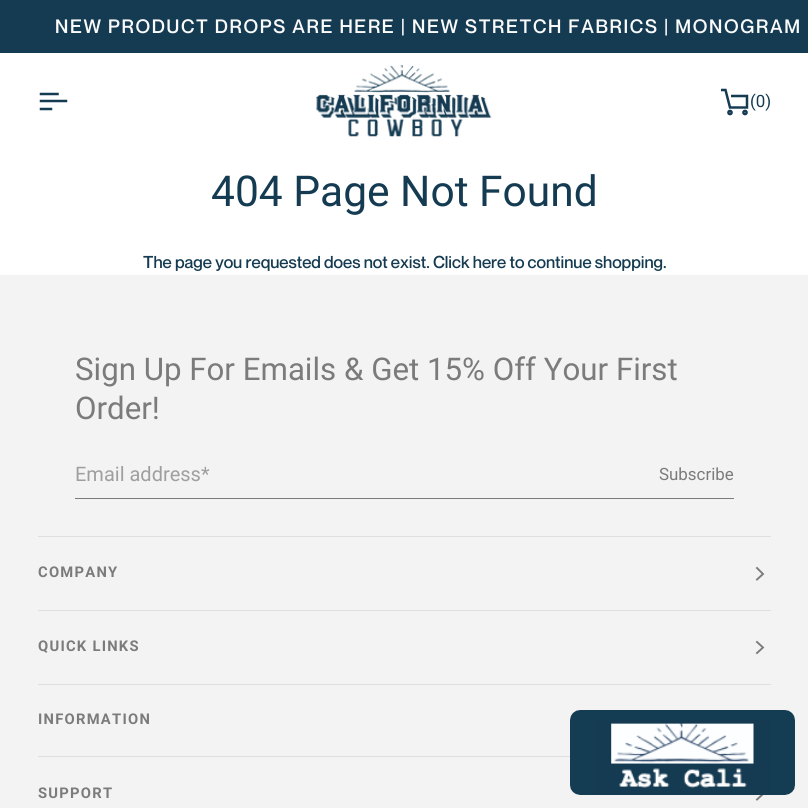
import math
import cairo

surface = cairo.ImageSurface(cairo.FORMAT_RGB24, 808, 808)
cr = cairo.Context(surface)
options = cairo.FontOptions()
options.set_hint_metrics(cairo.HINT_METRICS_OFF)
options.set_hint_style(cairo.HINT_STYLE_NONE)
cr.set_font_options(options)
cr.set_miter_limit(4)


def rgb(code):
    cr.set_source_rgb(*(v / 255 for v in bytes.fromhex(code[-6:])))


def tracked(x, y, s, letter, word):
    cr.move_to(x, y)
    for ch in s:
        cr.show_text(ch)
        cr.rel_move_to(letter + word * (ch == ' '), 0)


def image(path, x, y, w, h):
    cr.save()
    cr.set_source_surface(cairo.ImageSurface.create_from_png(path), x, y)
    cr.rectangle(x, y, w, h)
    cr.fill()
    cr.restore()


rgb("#ffffff")
cr.paint()
rgb("#143b52")
cr.rectangle(0, 0, 808, 53)
cr.fill()
cr.new_path()
cr.move_to(57.5, 94)
cr.line_to(41, 94)
cr.move_to(66, 101)
cr.line_to(41, 101)
cr.move_to(51, 109)
cr.line_to(41, 109)
cr.set_line_width(2.5)
cr.set_line_cap(cairo.LINE_CAP_SQUARE)
cr.stroke()
image("img/1.png", 316, 65, 176, 72)
cr.new_path()
cr.move_to(721, 90)
cr.line_to(725.5, 90)
cr.line_to(730, 107.5)
cr.line_to(747, 107.5)
cr.line_to(747, 96)
cr.line_to(731, 96)
cr.set_line_cap(cairo.LINE_CAP_BUTT)
cr.stroke()
cr.arc(730, 112.5, 1.6, 0, 2 * math.pi)
cr.stroke()
cr.arc(745, 112.5, 1.6, 0, 2 * math.pi)
cr.stroke()
for x, y, w, h, color in [
    (0, 275, 808, 533, "#f3f3f3"),
    (75, 498, 659, 1, "#7b7b7b"),
    (38, 536, 733, 1, "#dfdfdf"),
    (38, 610, 733, 1, "#dfdfdf"),
]:
    rgb(color)
    cr.rectangle(x, y, w, h)
    cr.fill()
cr.new_path()
cr.move_to(757, 579.5)
cr.line_to(763, 574)
cr.line_to(757, 568)
rgb("#7b7b7b")
cr.set_line_width(1.9)
cr.set_line_cap(cairo.LINE_CAP_SQUARE)
cr.stroke()
rgb("#dfdfdf")
cr.rectangle(38, 684, 733, 1)
cr.fill()
cr.new_path()
cr.move_to(757, 653)
cr.line_to(763, 647.5)
cr.line_to(757, 642)
rgb("#7b7b7b")
cr.stroke()
rgb("#dfdfdf")
cr.rectangle(38, 756, 532, 1)
cr.fill()
cr.new_path()
cr.move_to(757, 799.5)
cr.line_to(763, 794)
cr.line_to(757, 788)
rgb("#7b7b7b")
cr.stroke()
image("img/2.png", 570, 710, 225, 85)
cr.select_font_face("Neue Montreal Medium")
cr.set_font_size(19)
rgb("#fafafa")
tracked(55, 33, "NEW PRODUCT DROPS ARE HERE | NEW STRETCH FABRICS | MONOGRAM", 1.7, 0)
cr.select_font_face("Roboto")
cr.set_font_size(16.9)
rgb("#143b52")
cr.move_to(750, 107)
cr.show_text("(0)")
cr.set_font_size(42.5)
cr.move_to(211, 206)
cr.show_text("404 Page Not Found")
cr.select_font_face("Neue Montreal Medium")
cr.set_font_size(16.9)
cr.move_to(143, 268)
cr.show_text("The page you requested does not exist. Click here to continue shopping.")
cr.select_font_face("Roboto")
cr.set_font_size(31.25)
rgb("#7b7b7b")
cr.move_to(75, 380)
cr.show_text("Sign Up For Emails & Get 15% Off Your First")
cr.move_to(75, 419)
cr.show_text("Order!")
cr.set_font_size(20)
rgb("#9f9f9f")
cr.move_to(75, 481)
cr.show_text("Email address*")
cr.set_font_size(16.9)
rgb("#7b7b7b")
cr.move_to(659, 480)
cr.show_text("Subscribe")
cr.select_font_face("Roboto", cairo.FONT_SLANT_NORMAL, cairo.FONT_WEIGHT_BOLD)
cr.set_font_size(14.75)
for x, y, s in [
    (38, 577, "COMPANY"),
    (38, 651, "QUICK LINKS"),
    (38, 724, "INFORMATION"),
    (38, 798, "SUPPORT"),
]:
    tracked(x, y, s, 1.25, 0)
surface.write_to_png("page.png")
